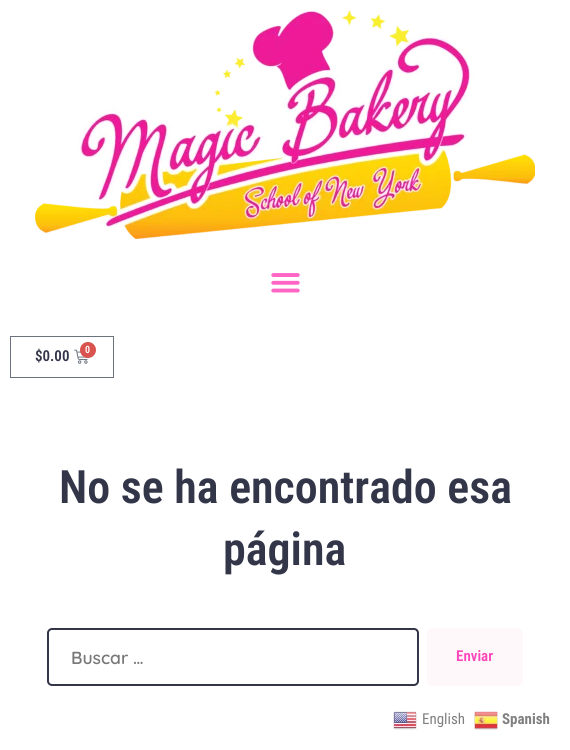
import math
import cairo

surface = cairo.ImageSurface(cairo.FORMAT_RGB24, 570, 750)
cr = cairo.Context(surface)
options = cairo.FontOptions()
options.set_hint_metrics(cairo.HINT_METRICS_OFF)
options.set_hint_style(cairo.HINT_STYLE_NONE)
cr.set_font_options(options)
cr.set_miter_limit(4)


def rgb(code):
    cr.set_source_rgb(*(v / 255 for v in bytes.fromhex(code[-6:])))


def rrect(x, y, w, h, r):
    cr.new_sub_path()
    for i, (u, v) in enumerate([(x + w - r, y + h - r), (x + r, y + h - r), (x + r, y + r), (x + w - r, y + r)]):
        cr.arc(u, v, r, i * math.pi / 2, (i + 1) * math.pi / 2)
    cr.close_path()


def image(path, x, y, w, h):
    cr.save()
    cr.set_source_surface(cairo.ImageSurface.create_from_png(path), x, y)
    cr.rectangle(x, y, w, h)
    cr.fill()
    cr.restore()


rgb("#ffffff")
cr.paint()
image("img/1.png", 35, 10, 500, 229)
image("img/2.png", 271, 273, 29, 20)
cr.rectangle(10.5, 336.5, 103, 41)
rgb("#69727d")
cr.set_line_width(1)
cr.stroke()
image("img/3.png", 74, 349, 14, 15)
rgb("#d9534f")
cr.arc(88, 350, 8, 0, 2 * math.pi)
cr.fill()
rrect(48, 629, 370, 56, 4)
rgb("#323648")
cr.set_line_width(2)
cr.stroke()
rgb("#fff8fb")
rrect(427, 628, 96, 58, 5)
cr.fill()
image("img/4.png", 393, 711, 24, 19)
image("img/5.png", 474, 711, 24, 19)
cr.select_font_face("Roboto Condensed SemiBold")
cr.set_font_size(15)
rgb("#323648")
cr.move_to(35, 361)
cr.show_text("$0.00")
cr.set_font_size(10)
rgb("#ffffff")
cr.move_to(85, 353)
cr.show_text("0")
cr.set_font_size(46)
rgb("#323648")
cr.move_to(59, 503)
cr.show_text("No se ha encontrado esa")
cr.move_to(223, 565)
cr.show_text("página")
cr.select_font_face("Quicksand SemiBold")
cr.set_font_size(17.5)
rgb("#787878")
cr.move_to(71, 664)
cr.show_text("Buscar …")
cr.select_font_face("Roboto Condensed SemiBold")
cr.set_font_size(15)
rgb("#ff45b9")
cr.move_to(456, 661)
cr.show_text("Enviar")
cr.select_font_face("Roboto Condensed")
rgb("#808080")
cr.move_to(422, 724)
cr.show_text("English")
cr.select_font_face("Roboto Condensed", cairo.FONT_SLANT_NORMAL, cairo.FONT_WEIGHT_BOLD)
cr.move_to(502, 724)
cr.show_text("Spanish")
surface.write_to_png("page.png")
